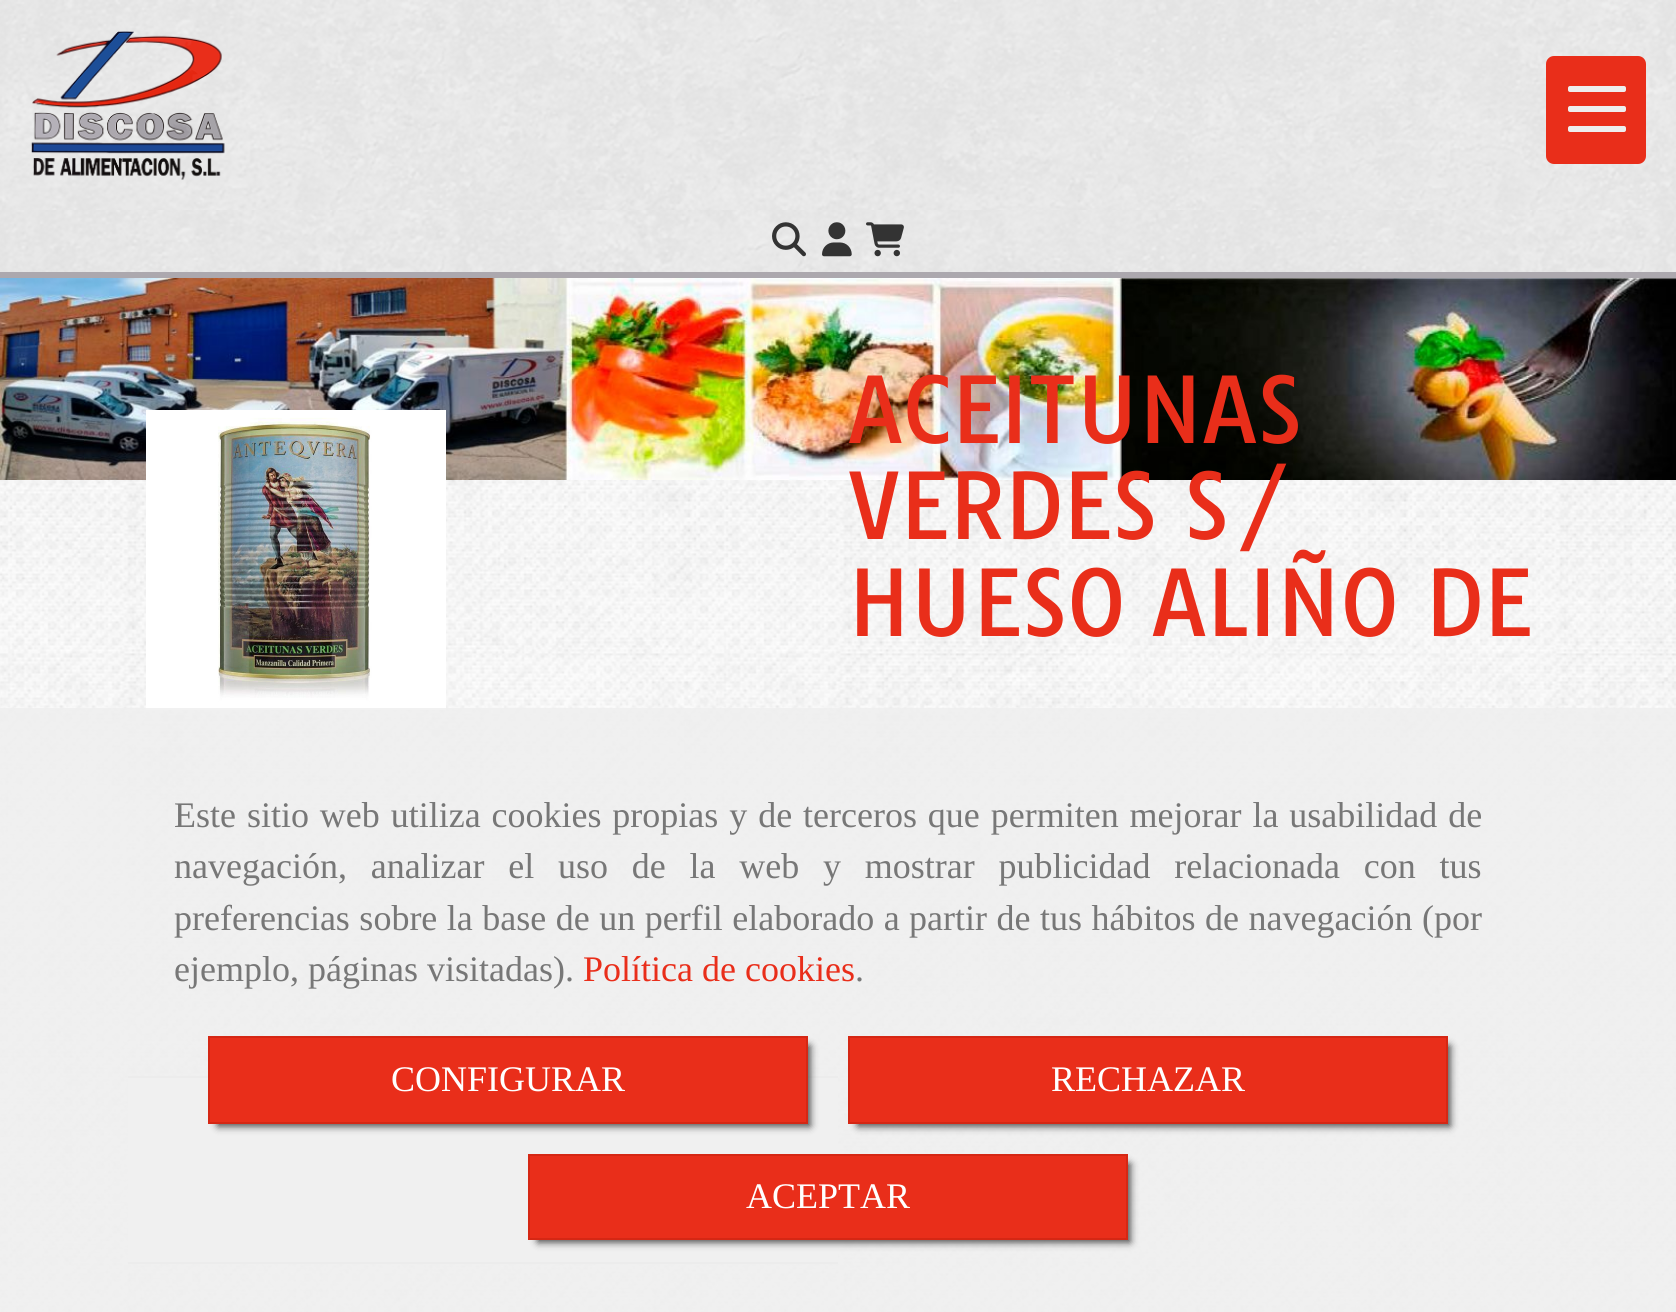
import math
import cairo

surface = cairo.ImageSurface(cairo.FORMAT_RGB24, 1676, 1312)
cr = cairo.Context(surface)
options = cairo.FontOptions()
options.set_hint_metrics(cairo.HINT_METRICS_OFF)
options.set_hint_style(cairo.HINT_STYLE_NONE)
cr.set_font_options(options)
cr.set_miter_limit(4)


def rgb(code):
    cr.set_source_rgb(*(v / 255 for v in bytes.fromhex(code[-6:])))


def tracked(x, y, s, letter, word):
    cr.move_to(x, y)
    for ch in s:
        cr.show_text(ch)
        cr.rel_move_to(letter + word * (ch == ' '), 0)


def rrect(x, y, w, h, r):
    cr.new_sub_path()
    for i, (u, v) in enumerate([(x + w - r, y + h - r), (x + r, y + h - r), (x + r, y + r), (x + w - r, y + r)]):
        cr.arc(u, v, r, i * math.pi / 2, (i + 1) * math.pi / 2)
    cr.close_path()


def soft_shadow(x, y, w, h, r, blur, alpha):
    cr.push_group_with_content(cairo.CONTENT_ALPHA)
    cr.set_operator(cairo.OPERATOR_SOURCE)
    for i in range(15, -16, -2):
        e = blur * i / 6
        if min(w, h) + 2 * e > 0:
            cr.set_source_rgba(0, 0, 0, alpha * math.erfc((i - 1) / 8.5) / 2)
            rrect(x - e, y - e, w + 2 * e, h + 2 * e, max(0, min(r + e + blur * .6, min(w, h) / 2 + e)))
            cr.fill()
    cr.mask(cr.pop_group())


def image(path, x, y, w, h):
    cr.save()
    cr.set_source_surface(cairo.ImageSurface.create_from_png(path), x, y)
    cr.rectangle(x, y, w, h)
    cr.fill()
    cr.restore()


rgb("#ffffff")
cr.paint()
image("img/1.png", 0, 480, 1676, 832)
image("img/2.png", 0, 0, 1676, 210)
image("img/3.png", 31, 31, 194, 149)
rgb("#e92e1a")
rrect(1546, 56, 100, 108, 8)
cr.fill()
rgb("#eeeeee")
rrect(1568, 106, 58, 6, 2)
cr.fill()
rrect(1568, 86, 58, 6, 2)
cr.fill()
rrect(1568, 126, 58, 6, 2)
cr.fill()
image("img/4.png", 0, 210, 1676, 62)
rgb("#aca8ae")
cr.rectangle(0, 272, 1676, 6)
cr.fill()
image("img/5.png", 772, 222, 34, 35)
image("img/6.png", 822, 222, 30, 35)
image("img/7.png", 866, 222, 38, 35)
image("img/8.png", 0, 278, 1676, 202)
image("img/9.png", 146, 410, 300, 300)
rgb("#f7f7f7")
cr.rectangle(128, 1078, 710, 184)
cr.fill()
rgb("#dddddd")
cr.rectangle(128, 1076, 710, 2)
cr.rectangle(128, 1262, 710, 2)
cr.fill()
cr.set_source_rgba(0.933, 0.933, 0.933, 0.85)
cr.rectangle(0, 708, 1676, 604)
cr.fill()
rgb("#000000")
soft_shadow(218, 1046, 592, 80, 0, 4, 0.75)
rgb("#e92e1a")
cr.rectangle(209, 1037, 598, 86)
cr.fill_preserve()
rgb("#d52714")
cr.stroke()
rgb("#000000")
soft_shadow(858, 1046, 592, 80, 0, 4, 0.75)
rgb("#e92e1a")
cr.rectangle(849, 1037, 598, 86)
cr.fill_preserve()
rgb("#d52714")
cr.stroke()
rgb("#000000")
soft_shadow(538, 1164, 592, 78, 0, 4, 0.75)
rgb("#e92e1a")
cr.rectangle(529, 1155, 598, 84)
cr.fill_preserve()
rgb("#d52714")
cr.stroke()
cr.select_font_face("Tauri")
cr.set_font_size(88)
rgb("#e92e1a")
for x, y, s in [
    (848, 443, "ACEITUNAS"),
    (848, 539, "VERDES S/"),
    (848, 636, "HUESO ALIÑO DE"),
]:
    cr.move_to(x, y)
    cr.show_text(s)
cr.select_font_face("Liberation Serif")
cr.set_font_size(36)
rgb("#777777")
tracked(174, 827, "Este sitio web utiliza cookies propias y de terceros que permiten mejorar la usabilidad de", 0, 1.9)
tracked(174, 878, "navegación, analizar el uso de la web y mostrar publicidad relacionada con tus", 0, 14.75)
tracked(174, 930, "preferencias sobre la base de un perfil elaborado a partir de tus hábitos de navegación (por", 0, 0.5)
cr.move_to(174, 981)
cr.show_text("ejemplo, páginas visitadas).")
rgb("#e92e1a")
cr.move_to(583, 981)
cr.show_text("Política de cookies")
rgb("#777777")
cr.move_to(855, 981)
cr.show_text(".")
rgb("#ffffff")
for x, y, s in [
    (391, 1091, "CONFIGURAR"),
    (1051, 1091, "RECHAZAR"),
    (746, 1208, "ACEPTAR"),
]:
    cr.move_to(x, y)
    cr.show_text(s)
surface.write_to_png("page.png")
